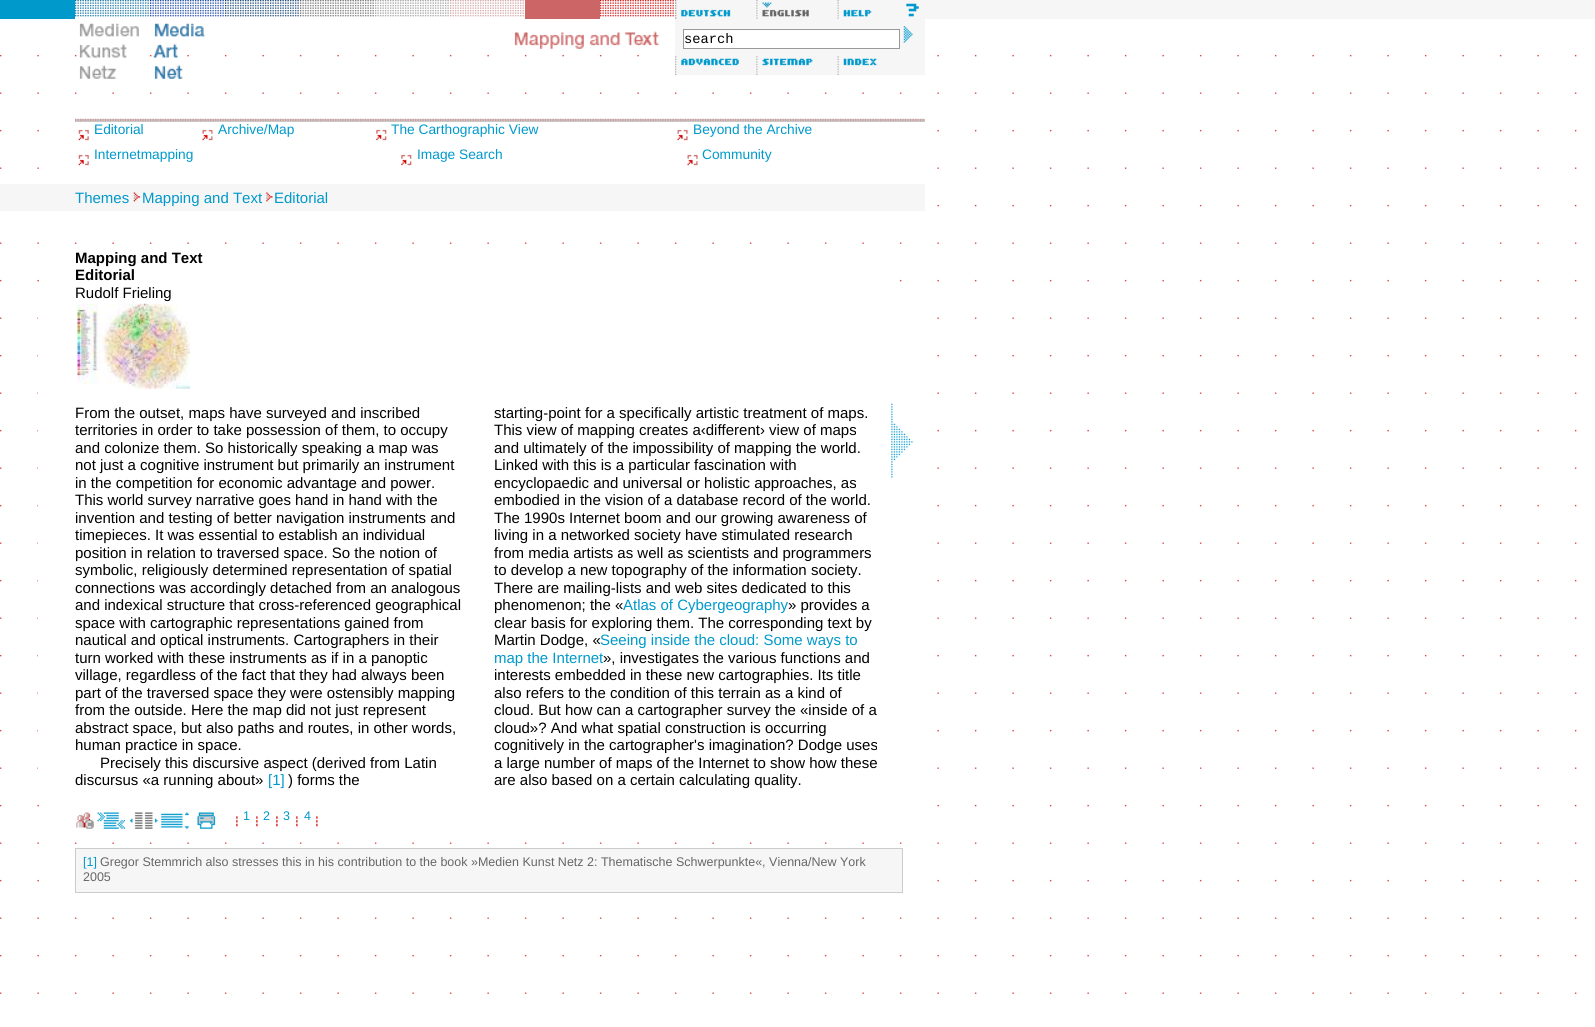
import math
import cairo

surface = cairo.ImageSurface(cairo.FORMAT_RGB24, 1595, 1027)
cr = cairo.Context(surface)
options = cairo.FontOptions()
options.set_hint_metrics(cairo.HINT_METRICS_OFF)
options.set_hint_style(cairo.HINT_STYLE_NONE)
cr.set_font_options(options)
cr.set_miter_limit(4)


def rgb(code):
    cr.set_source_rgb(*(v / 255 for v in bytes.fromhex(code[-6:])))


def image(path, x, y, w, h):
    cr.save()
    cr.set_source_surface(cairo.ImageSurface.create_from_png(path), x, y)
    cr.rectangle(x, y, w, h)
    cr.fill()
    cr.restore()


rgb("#ffffff")
cr.paint()
image("img/1.png", 0, 54, 1577, 940)
rgb("#f6f6f6")
cr.rectangle(675, 0, 920, 19)
cr.fill()
rgb("#0099cc")
cr.rectangle(0, 0, 75, 19)
cr.fill()
image("img/2.png", 75, 0, 74, 17)
image("img/3.png", 150, 0, 74, 17)
image("img/4.png", 225, 0, 74, 17)
image("img/5.png", 300, 0, 74, 17)
image("img/6.png", 375, 0, 74, 17)
image("img/7.png", 450, 0, 74, 17)
rgb("#cc6666")
cr.rectangle(525, 0, 75, 19)
cr.fill()
image("img/8.png", 600, 0, 74, 17)
image("img/9.png", 675, 0, 56, 19)
image("img/10.png", 756, 0, 53, 19)
image("img/11.png", 837, 0, 82, 19)
image("img/12.png", 79, 23, 60, 56)
image("img/13.png", 153, 23, 53, 56)
image("img/14.png", 514, 31, 145, 18)
rgb("#f6f6f6")
cr.rectangle(675, 19, 250, 56)
cr.fill()
rgb("#ffffff")
cr.rectangle(683.5, 29.5, 216, 19)
cr.fill_preserve()
rgb("#999999")
cr.set_line_width(1)
cr.stroke()
image("img/15.png", 903, 26, 10, 17)
image("img/16.png", 675, 56, 64, 19)
image("img/17.png", 756, 56, 57, 19)
image("img/18.png", 837, 56, 40, 19)
rgb("#ffffff")
cr.rectangle(75, 129, 827, 40)
cr.fill()
rgb("#cccccc")
cr.rectangle(75, 119, 850, 3)
cr.fill()
image("img/19.png", 75, 118, 850, 4)
image("img/20.png", 78, 129, 11, 12)
image("img/21.png", 202, 129, 11, 12)
image("img/22.png", 376, 129, 11, 12)
image("img/23.png", 677, 129, 11, 12)
image("img/20.png", 78, 154, 11, 12)
image("img/22.png", 401, 154, 11, 12)
image("img/23.png", 687, 154, 11, 12)
rgb("#f6f6f6")
cr.rectangle(0, 184, 925, 27)
cr.fill()
image("img/24.png", 133, 192, 8, 10)
image("img/25.png", 266, 192, 7, 10)
rgb("#ffffff")
cr.rectangle(75, 279, 789, 3)
cr.fill()
cr.rectangle(38, 317, 864, 452)
cr.fill()
image("img/26.png", 77, 303, 113, 86)
image("img/27.png", 891, 403, 22, 75)
cr.rectangle(75, 804, 827, 3)
cr.fill()
image("img/28.png", 76, 812, 18, 17)
image("img/29.png", 97, 812, 28, 17)
image("img/30.png", 130, 812, 28, 17)
image("img/31.png", 161, 812, 28, 17)
image("img/32.png", 197, 812, 19, 17)
image("img/33.png", 236, 816, 2, 11)
image("img/33.png", 256, 816, 2, 11)
image("img/34.png", 276, 816, 2, 11)
image("img/33.png", 296, 816, 2, 11)
image("img/33.png", 316, 816, 2, 11)
rgb("#f6f6f6")
cr.rectangle(75.5, 848.5, 827, 44)
cr.fill_preserve()
rgb("#cccccc")
cr.stroke()
cr.select_font_face("Liberation Mono")
cr.set_font_size(13.75)
rgb("#000000")
cr.move_to(684, 43)
cr.show_text("search")
cr.select_font_face("Liberation Sans")
rgb("#0099cc")
for x, y, s in [
    (94, 134, "Editorial"),
    (218, 134, "Archive/Map"),
    (391, 134, "The Carthographic View"),
    (693, 134, "Beyond the Archive"),
    (94, 159, "Internetmapping"),
    (417, 159, "Image Search"),
    (702, 159, "Community"),
]:
    cr.move_to(x, y)
    cr.show_text(s)
cr.set_font_size(15)
for x, y, s in [
    (75, 203, "Themes"),
    (142, 203, "Mapping and Text"),
    (274, 203, "Editorial"),
]:
    cr.move_to(x, y)
    cr.show_text(s)
cr.select_font_face("Liberation Sans", cairo.FONT_SLANT_NORMAL, cairo.FONT_WEIGHT_BOLD)
rgb("#000000")
cr.move_to(75, 263)
cr.show_text("Mapping and Text")
cr.move_to(75, 280)
cr.show_text("Editorial")
cr.select_font_face("Liberation Sans")
for x, y, s in [
    (75, 298, "Rudolf Frieling"),
    (75, 418, "From the outset, maps have surveyed and inscribed"),
    (75, 435, "territories in order to take possession of them, to occupy"),
    (75, 453, "and colonize them. So historically speaking a map was"),
    (75, 470, "not just a cognitive instrument but primarily an instrument"),
    (75, 488, "in the competition for economic advantage and power."),
    (75, 505, "This world survey narrative goes hand in hand with the"),
    (75, 523, "invention and testing of better navigation instruments and"),
    (75, 540, "timepieces. It was essential to establish an individual"),
    (75, 558, "position in relation to traversed space. So the notion of"),
    (75, 575, "symbolic, religiously determined representation of spatial"),
    (75, 593, "connections was accordingly detached from an analogous"),
    (75, 610, "and indexical structure that cross-referenced geographical"),
    (75, 628, "space with cartographic representations gained from"),
    (75, 645, "nautical and optical instruments. Cartographers in their"),
    (75, 663, "turn worked with these instruments as if in a panoptic"),
    (75, 680, "village, regardless of the fact that they had always been"),
    (75, 698, "part of the traversed space they were ostensibly mapping"),
    (75, 715, "from the outside. Here the map did not just represent"),
    (75, 733, "abstract space, but also paths and routes, in other words,"),
    (75, 750, "human practice in space."),
    (100, 768, "Precisely this discursive aspect (derived from Latin"),
    (75, 785, "discursus «a running about»"),
]:
    cr.move_to(x, y)
    cr.show_text(s)
rgb("#0099cc")
cr.move_to(268, 785)
cr.show_text("[1]")
rgb("#000000")
for x, y, s in [
    (288, 785, ") forms the"),
    (494, 418, "starting-point for a specifically artistic treatment of maps."),
    (494, 435, "This view of mapping creates a‹different› view of maps"),
    (494, 453, "and ultimately of the impossibility of mapping the world."),
    (494, 470, "Linked with this is a particular fascination with"),
    (494, 488, "encyclopaedic and universal or holistic approaches, as"),
    (494, 505, "embodied in the vision of a database record of the world."),
    (494, 523, "The 1990s Internet boom and our growing awareness of"),
    (494, 540, "living in a networked society have stimulated research"),
    (494, 558, "from media artists as well as scientists and programmers"),
    (494, 575, "to develop a new topography of the information society."),
    (494, 593, "There are mailing-lists and web sites dedicated to this"),
    (494, 610, "phenomenon; the «"),
]:
    cr.move_to(x, y)
    cr.show_text(s)
rgb("#0099cc")
cr.move_to(623, 610)
cr.show_text("Atlas of Cybergeography")
rgb("#000000")
for x, y, s in [
    (788, 610, "» provides a"),
    (494, 628, "clear basis for exploring them. The corresponding text by"),
    (494, 645, "Martin Dodge, «"),
]:
    cr.move_to(x, y)
    cr.show_text(s)
rgb("#0099cc")
cr.move_to(600, 645)
cr.show_text("Seeing inside the cloud: Some ways to")
cr.move_to(494, 663)
cr.show_text("map the Internet")
rgb("#000000")
for x, y, s in [
    (603, 663, "», investigates the various functions and"),
    (494, 680, "interests embedded in these new cartographies. Its title"),
    (494, 698, "also refers to the condition of this terrain as a kind of"),
    (494, 715, "cloud. But how can a cartographer survey the «inside of a"),
    (494, 733, "cloud»? And what spatial construction is occurring"),
    (494, 750, "cognitively in the cartographer's imagination? Dodge uses"),
    (494, 768, "a large number of maps of the Internet to show how these"),
    (494, 785, "are also based on a certain calculating quality."),
]:
    cr.move_to(x, y)
    cr.show_text(s)
cr.set_font_size(12.5)
rgb("#0099cc")
for x, y, s in [
    (243, 820, "1"),
    (263, 820, "2"),
    (283, 820, "3"),
    (304, 820, "4"),
    (83, 866, "[1]"),
]:
    cr.move_to(x, y)
    cr.show_text(s)
rgb("#666666")
cr.move_to(100, 866)
cr.show_text("Gregor Stemmrich also stresses this in his contribution to the book »Medien Kunst Netz 2: Thematische Schwerpunkte«, Vienna/New York")
cr.move_to(83, 881)
cr.show_text("2005")
surface.write_to_png("page.png")
